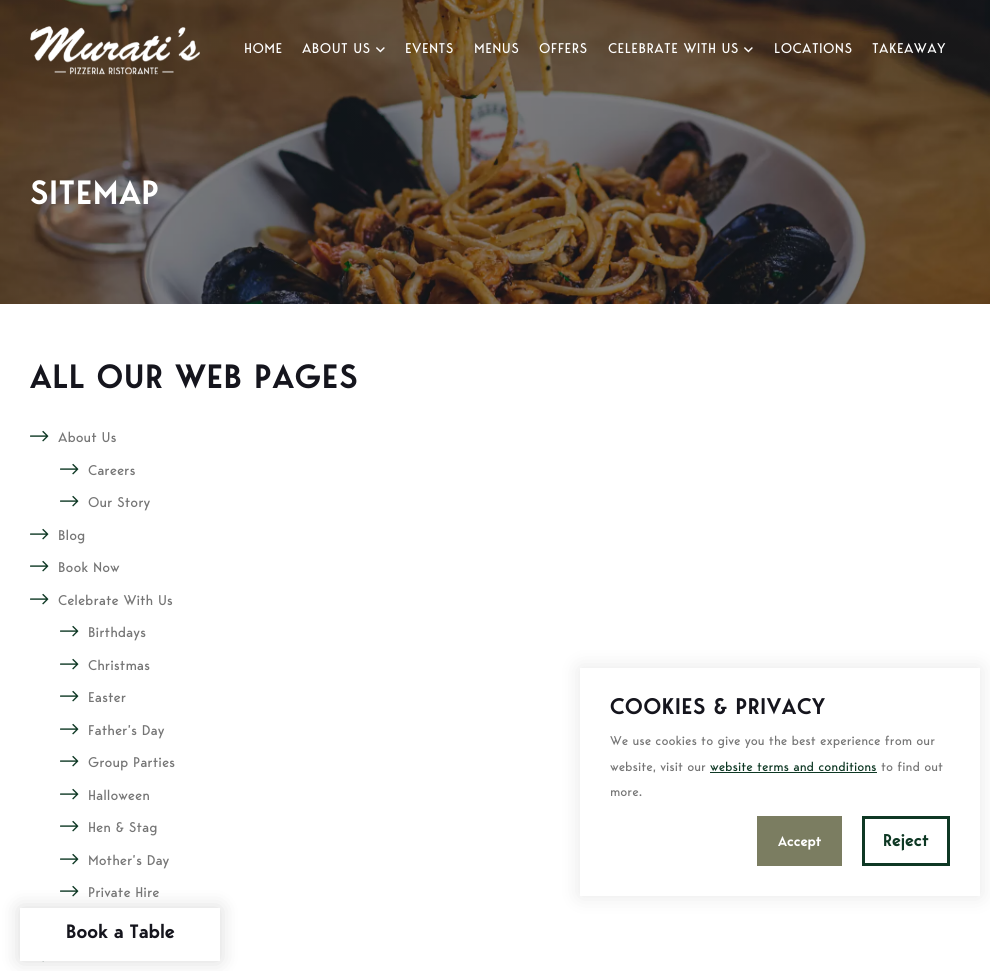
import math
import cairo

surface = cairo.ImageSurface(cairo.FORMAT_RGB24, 990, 971)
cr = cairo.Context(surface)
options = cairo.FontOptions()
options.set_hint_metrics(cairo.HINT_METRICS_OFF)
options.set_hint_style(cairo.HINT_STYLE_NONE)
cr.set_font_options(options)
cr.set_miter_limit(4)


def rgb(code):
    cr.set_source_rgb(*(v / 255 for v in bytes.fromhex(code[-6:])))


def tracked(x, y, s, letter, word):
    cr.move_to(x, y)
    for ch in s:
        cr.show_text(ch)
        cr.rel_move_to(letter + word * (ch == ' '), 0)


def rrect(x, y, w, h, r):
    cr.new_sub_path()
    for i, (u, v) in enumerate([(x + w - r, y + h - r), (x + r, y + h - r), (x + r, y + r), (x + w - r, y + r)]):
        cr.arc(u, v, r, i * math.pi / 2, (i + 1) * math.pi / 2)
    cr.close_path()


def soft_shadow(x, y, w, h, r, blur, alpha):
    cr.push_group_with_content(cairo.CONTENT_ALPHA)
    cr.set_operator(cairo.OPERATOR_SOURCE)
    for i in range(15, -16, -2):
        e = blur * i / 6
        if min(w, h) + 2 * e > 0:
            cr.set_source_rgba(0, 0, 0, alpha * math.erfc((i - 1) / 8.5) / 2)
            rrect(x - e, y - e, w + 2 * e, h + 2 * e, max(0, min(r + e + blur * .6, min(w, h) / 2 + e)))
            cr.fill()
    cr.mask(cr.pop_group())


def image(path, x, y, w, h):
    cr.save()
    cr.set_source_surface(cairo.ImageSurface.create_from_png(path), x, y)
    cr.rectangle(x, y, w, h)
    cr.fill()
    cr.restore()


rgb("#ffffff")
cr.paint()
image("img/4.png", 0, 0, 990, 304)
image("img/1.png", 30, 26, 170, 49)
image("img/2.png", 376, 47, 9, 6)
image("img/3.png", 744, 47, 9, 6)
image("img/5.png", 60, 885, 19, 12)
image("img/6.png", 42, 961, 2, 1)
rgb("#000000")
soft_shadow(20, 908, 200, 53, 0, 10, 0.15)
rgb("#ffffff")
cr.rectangle(20, 908, 200, 53)
cr.fill()
image("img/5.png", 30, 430, 19, 12)
image("img/5.png", 60, 463, 19, 12)
image("img/5.png", 60, 495, 19, 12)
image("img/5.png", 30, 528, 19, 12)
image("img/5.png", 30, 560, 19, 12)
image("img/5.png", 30, 593, 19, 12)
image("img/5.png", 60, 625, 19, 12)
image("img/5.png", 60, 658, 19, 12)
image("img/5.png", 60, 690, 19, 12)
image("img/5.png", 60, 723, 19, 12)
image("img/5.png", 60, 755, 19, 12)
image("img/5.png", 60, 788, 19, 12)
image("img/5.png", 60, 820, 19, 12)
image("img/5.png", 60, 853, 19, 12)
cr.save()
cr.set_fill_rule(cairo.FILL_RULE_EVEN_ODD)
cr.new_path()
cr.move_to(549, 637)
cr.line_to(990, 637)
cr.line_to(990, 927)
cr.line_to(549, 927)
cr.close_path()
cr.move_to(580, 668)
cr.line_to(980, 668)
cr.line_to(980, 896)
cr.line_to(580, 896)
cr.close_path()
cr.clip()
rgb("#000000")
soft_shadow(580, 668, 400, 228, 0, 10, 0.1)
cr.restore()
rgb("#0e3824")
cr.rectangle(710, 772, 167, 1)
cr.fill()
rgb("#7b7d61")
cr.rectangle(757, 816, 85, 50)
cr.fill()
cr.rectangle(863.5, 817.5, 85, 47)
rgb("#0e3824")
cr.set_line_width(3)
cr.stroke()
cr.select_font_face("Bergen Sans")
cr.set_font_size(14)
rgb("#ffffff")
for x, y, s in [
    (244, 53, "HOME"),
    (302, 53, "ABOUT US"),
    (405, 53, "EVENTS"),
    (474, 53, "MENUS"),
    (539, 53, "OFFERS"),
    (608, 53, "CELEBRATE WITH US"),
    (774, 53, "LOCATIONS"),
    (872, 53, "TAKEAWAY"),
]:
    tracked(x, y, s, 0.4, 0)
cr.select_font_face("Bergen Sans SemiBold")
cr.set_font_size(19.25)
rgb("#15151d")
cr.move_to(66, 938)
cr.show_text("Book a Table")
cr.set_font_size(33.5)
rgb("#ffffff")
tracked(30, 204, "SITEMAP", 1, 0)
rgb("#15151d")
tracked(30, 388, "ALL OUR WEB PAGES", 1, 0)
cr.select_font_face("Bergen Sans")
cr.set_font_size(14)
rgb("#757575")
for x, y, s in [
    (58, 442, "About Us"),
    (88, 475, "Careers"),
    (88, 507, "Our Story"),
    (58, 540, "Blog"),
    (58, 572, "Book Now"),
    (58, 605, "Celebrate With Us"),
    (88, 637, "Birthdays"),
    (88, 670, "Christmas"),
    (88, 702, "Easter"),
    (88, 735, "Father’s Day"),
    (88, 767, "Group Parties"),
    (88, 800, "Halloween"),
    (88, 832, "Hen & Stag"),
    (88, 865, "Mother’s Day"),
    (88, 897, "Private Hire"),
]:
    cr.move_to(x, y)
    cr.show_text(s)
cr.select_font_face("Bergen Sans SemiBold")
cr.set_font_size(22.5)
rgb("#15151d")
tracked(610, 714, "COOKIES & PRIVACY", 0.7, 0)
cr.select_font_face("Bergen Sans")
cr.set_font_size(12.6)
rgb("#757575")
cr.move_to(610, 745)
cr.show_text("We use cookies to give you the best experience from our")
cr.move_to(610, 771)
cr.show_text("website, visit our")
rgb("#0e3824")
cr.move_to(710, 771)
cr.show_text("website terms and conditions")
rgb("#757575")
cr.move_to(881, 771)
cr.show_text("to find out")
cr.move_to(610, 796)
cr.show_text("more.")
cr.select_font_face("Bergen Sans SemiBold")
cr.set_font_size(14)
rgb("#ffffff")
cr.move_to(778, 846)
cr.show_text("Accept")
cr.set_font_size(17)
rgb("#0e3824")
cr.move_to(883, 846)
cr.show_text("Reject")
surface.write_to_png("page.png")
